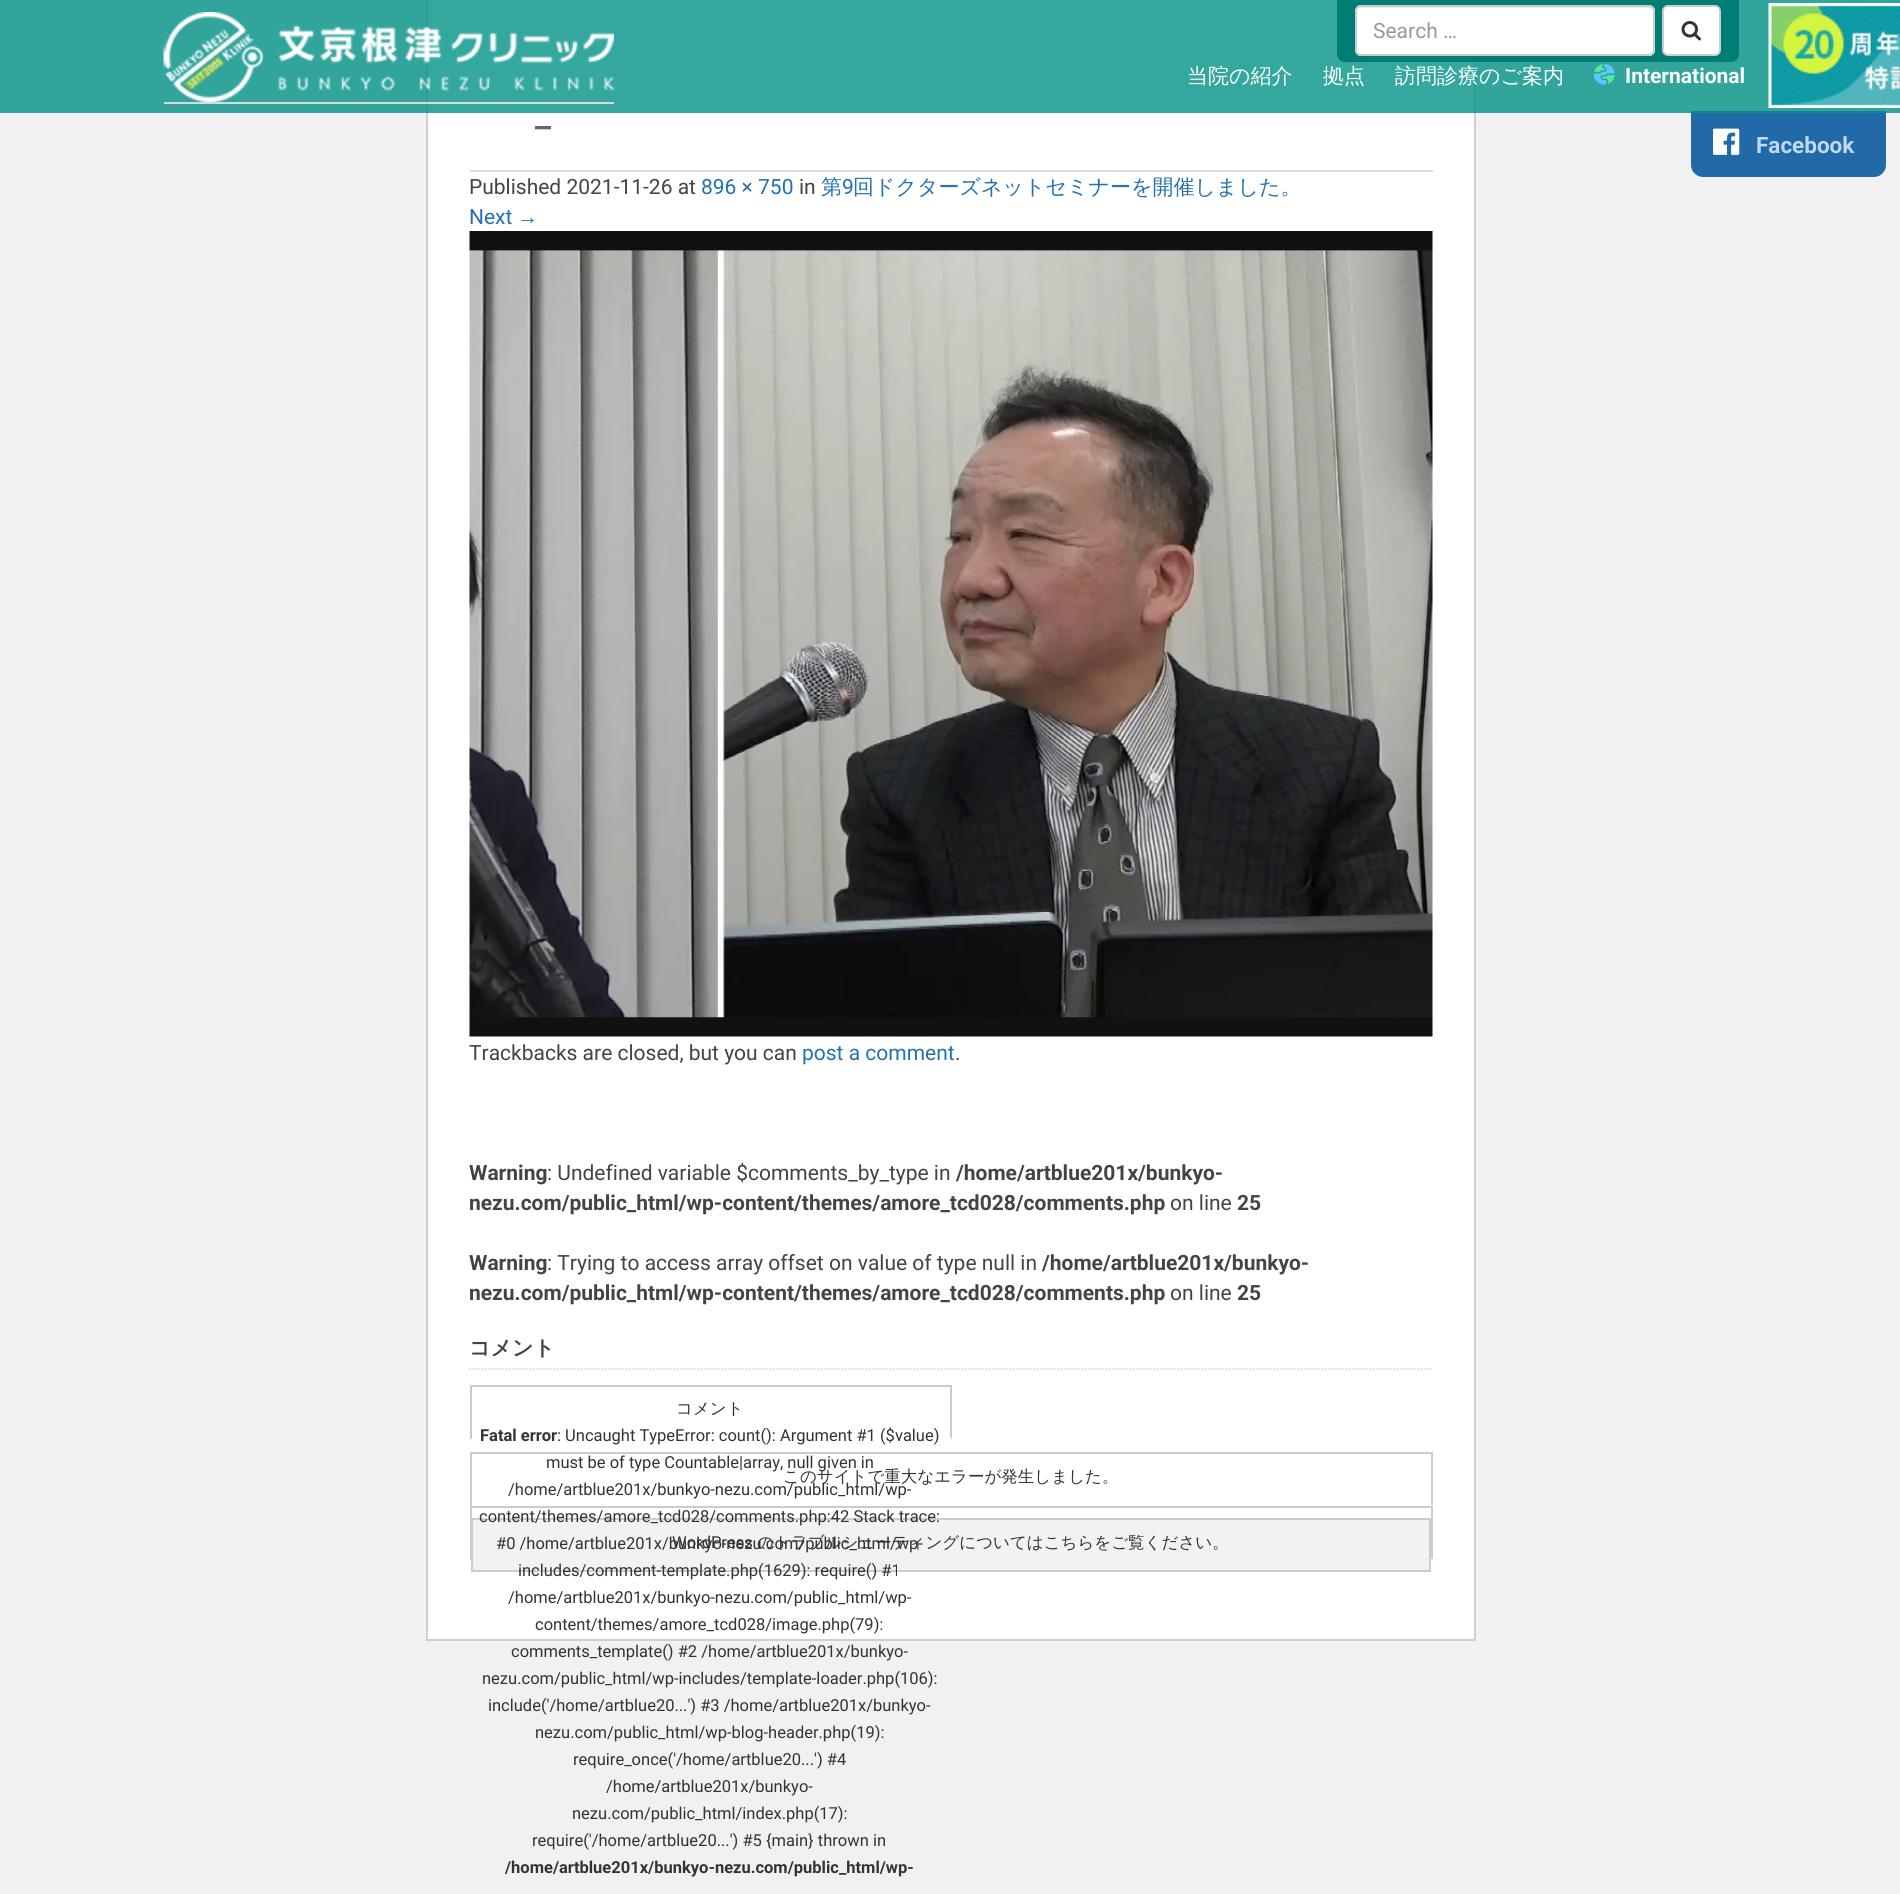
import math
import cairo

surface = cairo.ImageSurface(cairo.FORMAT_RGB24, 1900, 1894)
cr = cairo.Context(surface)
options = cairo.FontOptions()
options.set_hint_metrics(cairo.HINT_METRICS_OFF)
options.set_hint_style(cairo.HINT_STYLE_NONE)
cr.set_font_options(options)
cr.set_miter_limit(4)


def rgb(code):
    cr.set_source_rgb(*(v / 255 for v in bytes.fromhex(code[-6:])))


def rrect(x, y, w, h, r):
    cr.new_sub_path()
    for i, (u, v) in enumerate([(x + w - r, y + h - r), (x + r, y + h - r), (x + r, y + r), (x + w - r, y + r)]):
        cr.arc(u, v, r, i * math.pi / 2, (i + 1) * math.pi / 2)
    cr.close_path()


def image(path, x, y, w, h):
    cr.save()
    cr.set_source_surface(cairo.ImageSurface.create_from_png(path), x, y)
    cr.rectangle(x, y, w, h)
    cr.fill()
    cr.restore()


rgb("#f1f1f1")
cr.paint()
rgb("#ffffff")
cr.rectangle(427, -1, 1048, 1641)
cr.fill_preserve()
rgb("#ccd0d4")
cr.stroke()
rgb("#2269a7")
cr.new_path()
cr.move_to(1691, 111)
cr.line_to(1886, 111)
cr.line_to(1886, 165)
cr.curve_to(1886, 171.5, 1880.5, 177, 1874, 177)
cr.line_to(1703, 177)
cr.curve_to(1696.5, 177, 1691, 171.5, 1691, 165)
cr.close_path()
cr.fill()
cr.set_source_rgba(0.008, 0.573, 0.529, 0.8)
cr.rectangle(0, 0, 1900, 113)
cr.fill()
rgb("#dadada")
cr.rectangle(164, 102, 450, 2)
cr.fill()
image("img/1.png", 163, 12, 451, 90)
rgb("#007d74")
cr.new_path()
cr.move_to(1337, 0)
cr.line_to(1739, 0)
cr.line_to(1739, 54)
cr.curve_to(1739, 58.5, 1735.5, 62, 1731, 62)
cr.line_to(1345, 62)
cr.curve_to(1340.5, 62, 1337, 58.5, 1337, 54)
cr.close_path()
cr.fill()
rgb("#ffffff")
rrect(1355, 5, 300, 51, 6)
cr.fill()
rgb("#ececec")
cr.new_path()
cr.move_to(1360, 8)
cr.line_to(1648, 8)
cr.curve_to(1651, 8, 1653, 10, 1653, 12)
cr.line_to(1653, 11)
cr.curve_to(1653, 8, 1651, 6, 1648, 6)
cr.line_to(1361, 6)
cr.curve_to(1358, 6, 1356, 8, 1356, 11)
cr.line_to(1356, 12)
cr.curve_to(1356, 10, 1358, 8, 1360, 8)
cr.close_path()
cr.fill()
rrect(1356, 6, 298, 49, 5)
rgb("#cccccc")
cr.stroke()
rgb("#ffffff")
rrect(1663, 6, 57, 49, 5)
cr.fill_preserve()
rgb("#cccccc")
cr.stroke()
image("img/2.png", 1681, 21, 20, 20)
image("img/3.png", 1768, 3, 132, 105)
image("img/4.png", 1593, 64, 22, 21)
rgb("#dadada")
cr.rectangle(470, 170, 963, 2)
cr.fill()
image("img/5.png", 469, 231, 964, 806)
cr.new_path()
cr.move_to(469.5, 1369)
cr.line_to(1432.5, 1369)
rgb("#d3d3d3")
cr.set_line_width(1.5)
cr.set_dash([1.5, 1.5])
cr.stroke()
for x, y, w, h, color in [
    (470, 1385, 481, 2, "#cccccc"),
    (950, 1385, 2, 54, "#cccccc"),
    (950, 1437, 1, 2, "#ffffff"),
    (470, 1385, 2, 54, "#cccccc"),
    (470, 1452, 963, 2, "#cccccc"),
    (1431, 1452, 2, 54, "#cccccc"),
    (1431, 1505, 2, 1, "#ffffff"),
    (470, 1452, 2, 54, "#cccccc"),
    (470, 1506, 963, 2, "#cccccc"),
    (1431, 1506, 2, 54, "#cccccc"),
    (1431, 1559, 2, 1, "#ffffff"),
    (470, 1506, 2, 54, "#cccccc"),
]:
    rgb(color)
    cr.rectangle(x, y, w, h)
    cr.fill()
rgb("#f2f2f2")
cr.rectangle(472, 1519, 958, 52)
cr.fill_preserve()
rgb("#cccccc")
cr.set_line_width(2)
cr.set_dash([])
cr.stroke()
image("img/6.png", 1713, 128, 27, 27)
cr.select_font_face("Roboto")
cr.set_font_size(21)
rgb("#999999")
cr.move_to(1373, 38)
cr.show_text("Search …")
cr.select_font_face("WenQuanYi Zen Hei Medium")
rgb("#ffffff")
for x, y, s in [
    (1187, 83, "当院の紹介"),
    (1323, 83, "拠点"),
    (1395, 83, "訪問診療のご案内"),
]:
    cr.move_to(x, y)
    cr.show_text(s)
cr.select_font_face("Roboto", cairo.FONT_SLANT_NORMAL, cairo.FONT_WEIGHT_BOLD)
cr.move_to(1625, 83)
cr.show_text("International")
cr.select_font_face("Roboto Medium")
cr.set_font_size(36)
rgb("#666666")
cr.move_to(535, 126)
cr.show_text("_")
cr.select_font_face("Roboto")
cr.set_font_size(21)
rgb("#444444")
cr.move_to(469, 194)
cr.show_text("Published 2021-11-26 at")
rgb("#2271b1")
cr.move_to(701, 194)
cr.show_text("896 × 750")
rgb("#444444")
cr.move_to(799, 194)
cr.show_text("in")
cr.select_font_face("WenQuanYi Zen Hei Medium")
rgb("#2271b1")
cr.move_to(821, 194)
cr.show_text("第")
cr.select_font_face("Roboto")
cr.move_to(842, 194)
cr.show_text("9")
cr.select_font_face("WenQuanYi Zen Hei Medium")
cr.move_to(853, 194)
cr.show_text("回ドクターズネットセミナーを開催しました。")
cr.select_font_face("Roboto")
cr.move_to(469, 224)
cr.show_text("Next")
cr.select_font_face("Liberation Sans")
cr.move_to(517, 224)
cr.show_text("→")
cr.select_font_face("Roboto")
rgb("#444444")
cr.move_to(469, 1060)
cr.show_text("Trackbacks are closed, but you can")
rgb("#2271b1")
cr.move_to(802, 1060)
cr.show_text("post a comment")
rgb("#444444")
cr.move_to(955, 1060)
cr.show_text(".")
cr.select_font_face("Roboto", cairo.FONT_SLANT_NORMAL, cairo.FONT_WEIGHT_BOLD)
cr.move_to(469, 1180)
cr.show_text("Warning")
cr.select_font_face("Roboto")
cr.move_to(547, 1180)
cr.show_text(": Undefined variable $comments_by_type in")
cr.select_font_face("Roboto", cairo.FONT_SLANT_NORMAL, cairo.FONT_WEIGHT_BOLD)
cr.move_to(956, 1180)
cr.show_text("/home/artblue201x/bunkyo-")
cr.move_to(469, 1210)
cr.show_text("nezu.com/public_html/wp-content/themes/amore_tcd028/comments.php")
cr.select_font_face("Roboto")
cr.move_to(1170, 1210)
cr.show_text("on line")
cr.select_font_face("Roboto", cairo.FONT_SLANT_NORMAL, cairo.FONT_WEIGHT_BOLD)
cr.move_to(1237, 1210)
cr.show_text("25")
cr.move_to(469, 1270)
cr.show_text("Warning")
cr.select_font_face("Roboto")
cr.move_to(547, 1270)
cr.show_text(": Trying to access array offset on value of type null in")
cr.select_font_face("Roboto", cairo.FONT_SLANT_NORMAL, cairo.FONT_WEIGHT_BOLD)
cr.move_to(1042, 1270)
cr.show_text("/home/artblue201x/bunkyo-")
cr.move_to(469, 1300)
cr.show_text("nezu.com/public_html/wp-content/themes/amore_tcd028/comments.php")
cr.select_font_face("Roboto")
cr.move_to(1170, 1300)
cr.show_text("on line")
cr.select_font_face("Roboto", cairo.FONT_SLANT_NORMAL, cairo.FONT_WEIGHT_BOLD)
cr.move_to(1237, 1300)
cr.show_text("25")
cr.select_font_face("WenQuanYi Zen Hei", cairo.FONT_SLANT_NORMAL, cairo.FONT_WEIGHT_BOLD)
cr.move_to(469, 1355)
cr.show_text("コメント")
cr.select_font_face("WenQuanYi Zen Hei Medium")
cr.set_font_size(16.5)
rgb("#333333")
cr.move_to(676, 1414)
cr.show_text("コメント")
cr.select_font_face("Roboto", cairo.FONT_SLANT_NORMAL, cairo.FONT_WEIGHT_BOLD)
cr.move_to(480, 1441)
cr.show_text("Fatal error")
cr.select_font_face("Roboto")
for x, y, s in [
    (557, 1441, ": Uncaught TypeError: count(): Argument #1 ($value)"),
    (546, 1468, "must be of type Countable|array, null given in"),
    (508, 1495, "/home/artblue201x/bunkyo-nezu.com/public_html/wp-"),
    (479, 1522, "content/themes/amore_tcd028/comments.php:42 Stack trace:"),
    (518, 1576, "includes/comment-template.php(1629): require() #1"),
    (508, 1603, "/home/artblue201x/bunkyo-nezu.com/public_html/wp-"),
    (535, 1630, "content/themes/amore_tcd028/image.php(79):"),
    (511, 1657, "comments_template() #2 /home/artblue201x/bunkyo-"),
    (482, 1684, "nezu.com/public_html/wp-includes/template-loader.php(106):"),
    (488, 1711, "include('/home/artblue20...') #3 /home/artblue201x/bunkyo-"),
    (535, 1738, "nezu.com/public_html/wp-blog-header.php(19):"),
    (573, 1765, "require_once('/home/artblue20...') #4"),
    (606, 1792, "/home/artblue201x/bunkyo-"),
    (572, 1819, "nezu.com/public_html/index.php(17):"),
    (532, 1846, "require('/home/artblue20...') #5 {main} thrown in"),
]:
    cr.move_to(x, y)
    cr.show_text(s)
cr.select_font_face("Roboto", cairo.FONT_SLANT_NORMAL, cairo.FONT_WEIGHT_BOLD)
cr.move_to(505, 1873)
cr.show_text("/home/artblue201x/bunkyo-nezu.com/public_html/wp-")
cr.select_font_face("WenQuanYi Zen Hei Medium")
cr.move_to(783, 1482)
cr.show_text("このサイトで重大なエラーが発生しました。")
cr.select_font_face("Roboto")
cr.move_to(672, 1548)
cr.show_text("WordPress")
cr.select_font_face("WenQuanYi Zen Hei Medium")
cr.move_to(757, 1548)
cr.show_text("のトラブルシューティングについてはこちらをご覧ください。")
cr.select_font_face("Roboto")
cr.move_to(496, 1549)
cr.show_text("#0 /home/artblue201x/bunkyo-nezu.com/public_html/wp-")
cr.select_font_face("Roboto", cairo.FONT_SLANT_NORMAL, cairo.FONT_WEIGHT_BOLD)
cr.set_font_size(22.5)
rgb("#bfd9f1")
cr.move_to(1756, 153)
cr.show_text("Facebook")
surface.write_to_png("page.png")
